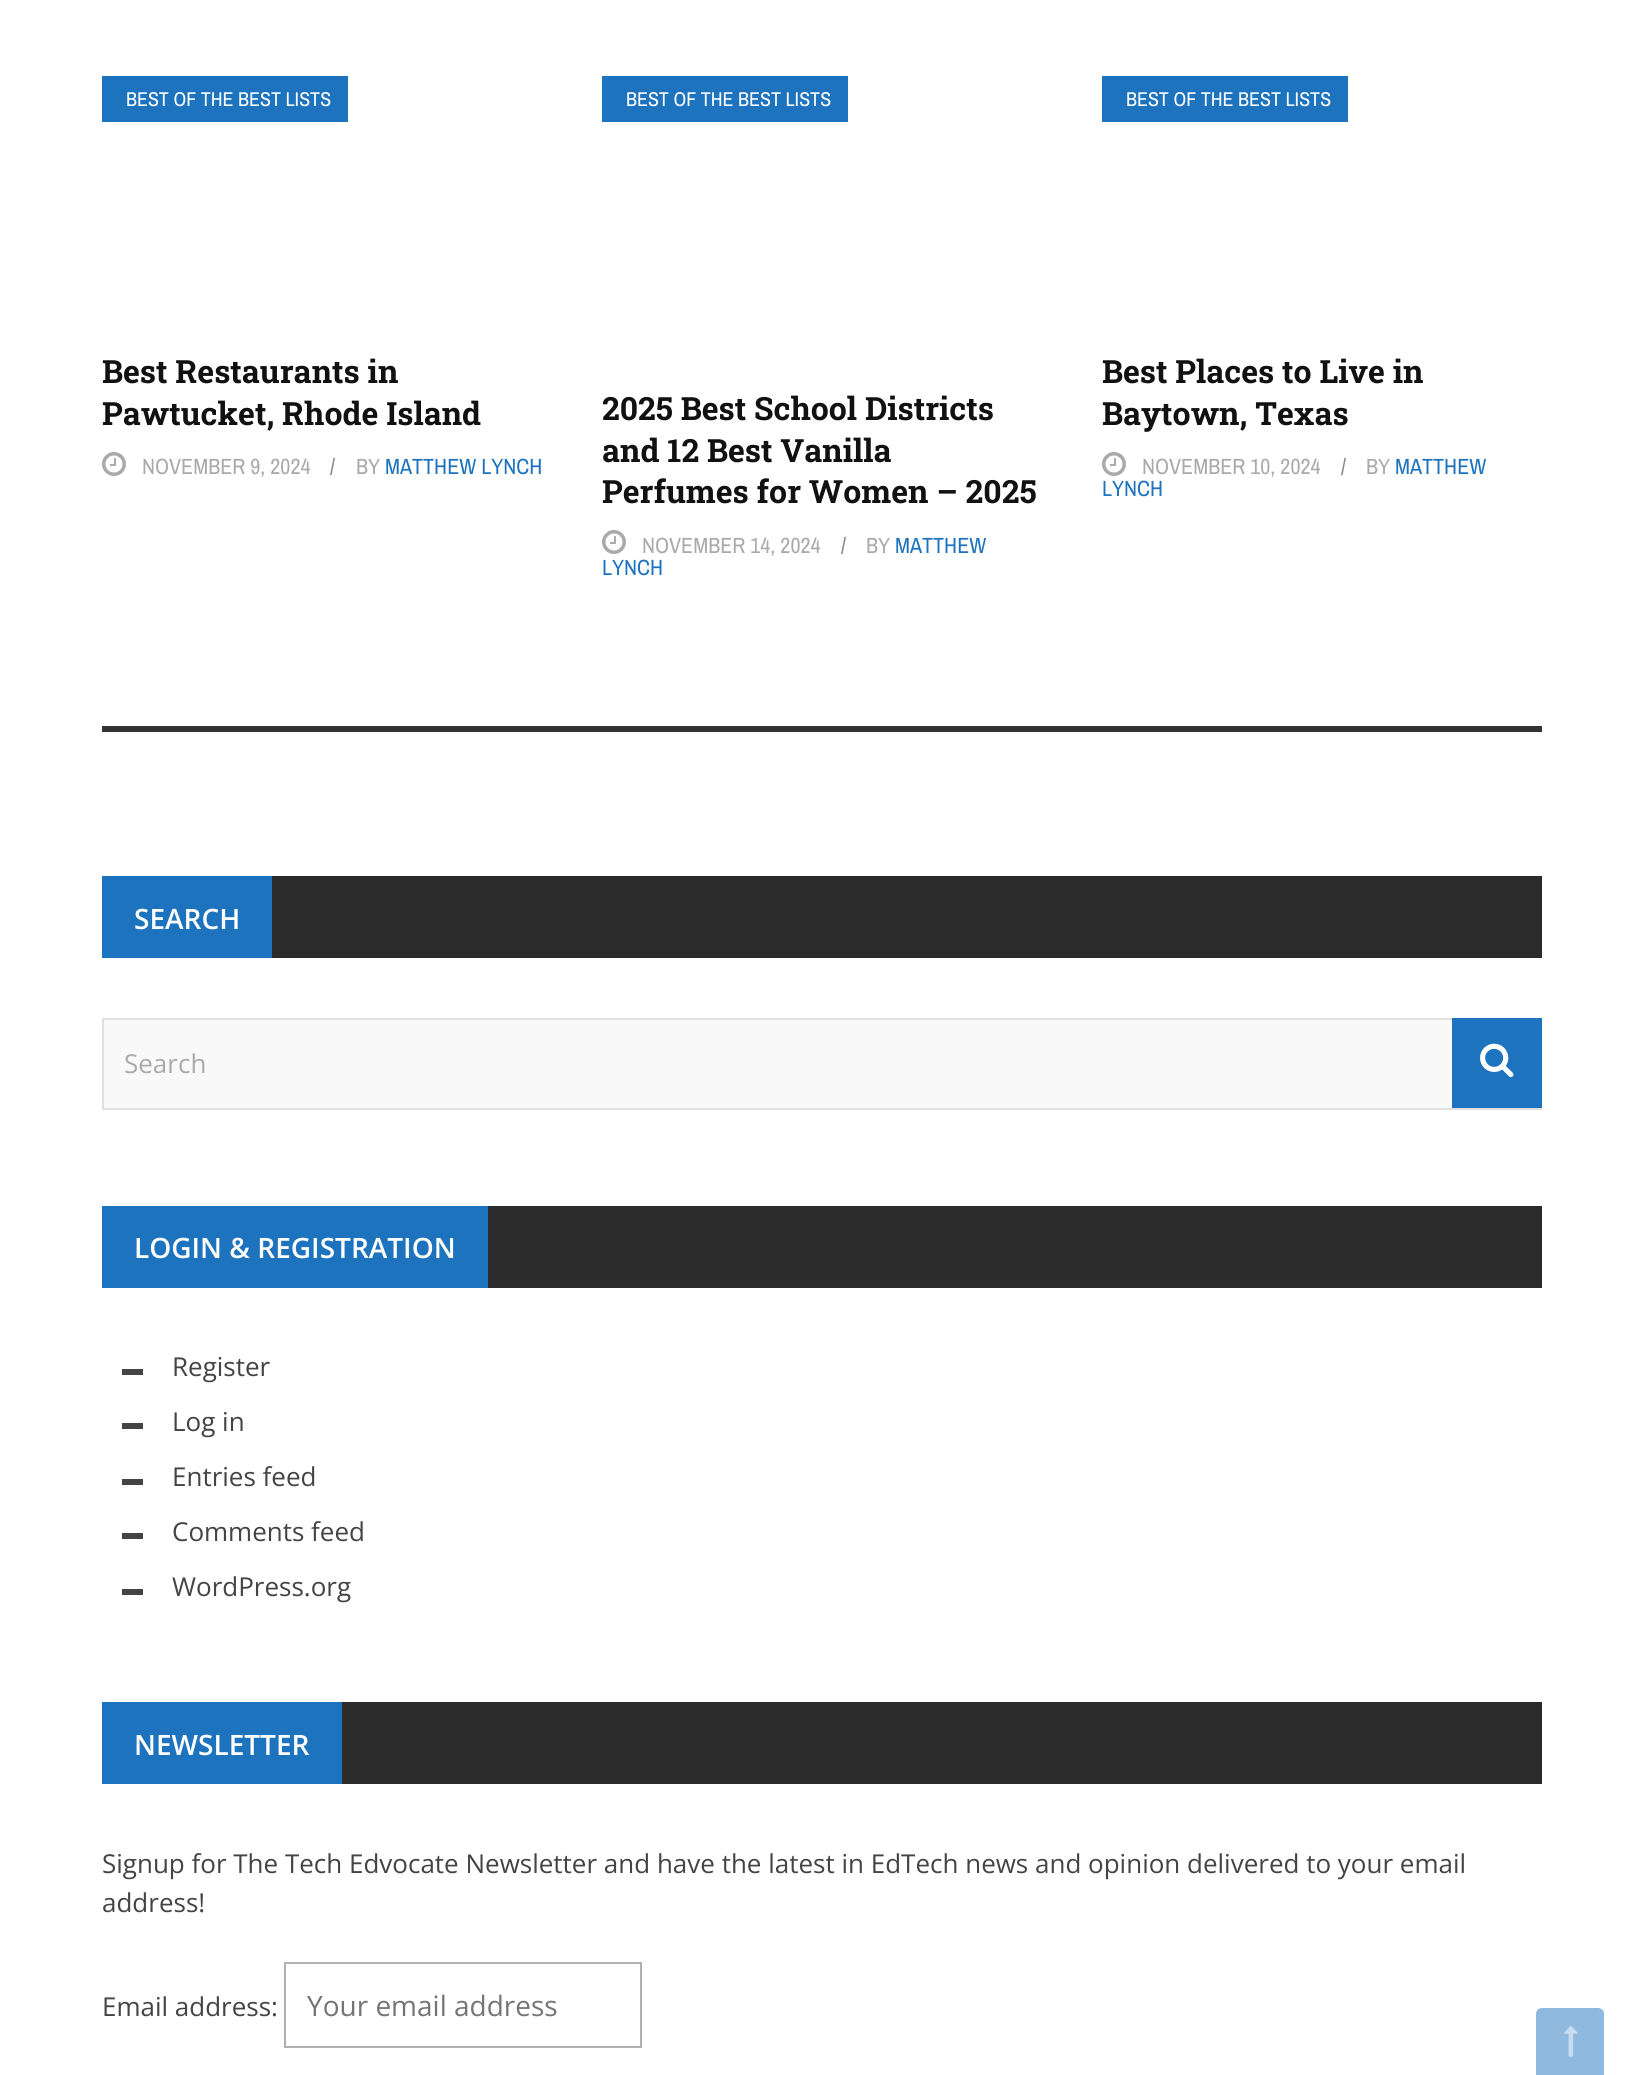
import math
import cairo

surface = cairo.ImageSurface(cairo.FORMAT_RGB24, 1643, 2075)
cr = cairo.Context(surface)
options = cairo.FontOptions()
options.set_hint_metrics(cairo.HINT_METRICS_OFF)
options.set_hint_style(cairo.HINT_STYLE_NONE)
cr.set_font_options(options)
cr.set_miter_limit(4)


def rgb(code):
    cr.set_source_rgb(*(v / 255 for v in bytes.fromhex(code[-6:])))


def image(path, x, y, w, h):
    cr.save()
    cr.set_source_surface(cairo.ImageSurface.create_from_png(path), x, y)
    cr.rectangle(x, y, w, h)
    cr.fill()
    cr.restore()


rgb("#ffffff")
cr.paint()
rgb("#1e73be")
cr.rectangle(102, 76, 246, 46)
cr.fill()
image("img/1.png", 102, 452, 24, 24)
cr.rectangle(602, 76, 246, 46)
cr.fill()
image("img/1.png", 602, 530, 24, 24)
cr.rectangle(1102, 76, 246, 46)
cr.fill()
image("img/1.png", 1102, 452, 24, 24)
for x, y, w, h, color in [
    (102, 726, 1440, 6, "#333333"),
    (272, 876, 1270, 82, "#2b2b2b"),
    (102, 876, 170, 82, "#1e73be"),
    (104, 1020, 1348, 88, "#f9f9f9"),
]:
    rgb(color)
    cr.rectangle(x, y, w, h)
    cr.fill()
cr.rectangle(103, 1019, 1438, 90)
rgb("#e0e0e0")
cr.stroke()
rgb("#1e73be")
cr.rectangle(1452, 1018, 90, 90)
cr.fill()
image("img/2.png", 1480, 1043, 34, 35)
for x, y, w, h, color in [
    (488, 1206, 1054, 82, "#2b2b2b"),
    (102, 1206, 386, 82, "#1e73be"),
    (122, 1369, 21, 6, "#444444"),
    (122, 1423, 21, 6, "#444444"),
    (122, 1479, 21, 6, "#444444"),
    (122, 1533, 21, 6, "#444444"),
    (122, 1589, 21, 6, "#444444"),
    (342, 1702, 1200, 82, "#2b2b2b"),
    (102, 1702, 240, 82, "#1e73be"),
]:
    rgb(color)
    cr.rectangle(x, y, w, h)
    cr.fill()
cr.rectangle(285, 1963, 356, 84)
rgb("#b0b0b0")
cr.stroke()
rgb("#8fb9df")
cr.new_path()
cr.move_to(1542, 2008)
cr.line_to(1598, 2008)
cr.curve_to(1601.5, 2008, 1604, 2010.5, 1604, 2014)
cr.line_to(1604, 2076)
cr.line_to(1536, 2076)
cr.line_to(1536, 2014)
cr.curve_to(1536, 2010.5, 1538.5, 2008, 1542, 2008)
cr.close_path()
cr.fill()
image("img/3.png", 1564, 2025, 14, 32)
cr.select_font_face("Archivo Narrow")
cr.set_font_size(20)
rgb("#ffffff")
cr.move_to(126, 106)
cr.show_text("BEST OF THE BEST LISTS")
cr.select_font_face("Roboto Slab", cairo.FONT_SLANT_NORMAL, cairo.FONT_WEIGHT_BOLD)
cr.set_font_size(32)
rgb("#111111")
cr.move_to(102, 383)
cr.show_text("Best Restaurants in")
cr.move_to(102, 425)
cr.show_text("Pawtucket, Rhode Island")
cr.select_font_face("Archivo Narrow")
cr.set_font_size(22)
rgb("#aaaaaa")
cr.move_to(142, 474)
cr.show_text("NOVEMBER 9, 2024")
rgb("#888888")
cr.move_to(330, 474)
cr.show_text("/")
rgb("#aaaaaa")
cr.move_to(356, 474)
cr.show_text("BY")
rgb("#1e73be")
cr.move_to(385, 474)
cr.show_text("MATTHEW LYNCH")
cr.set_font_size(20)
rgb("#ffffff")
cr.move_to(626, 106)
cr.show_text("BEST OF THE BEST LISTS")
cr.select_font_face("Roboto Slab", cairo.FONT_SLANT_NORMAL, cairo.FONT_WEIGHT_BOLD)
cr.set_font_size(32)
rgb("#111111")
for x, y, s in [
    (602, 420, "2025 Best School Districts"),
    (602, 462, "and 12 Best Vanilla"),
    (602, 503, "Perfumes for Women – 2025"),
]:
    cr.move_to(x, y)
    cr.show_text(s)
cr.select_font_face("Archivo Narrow")
cr.set_font_size(22)
rgb("#aaaaaa")
cr.move_to(642, 553)
cr.show_text("NOVEMBER 14, 2024")
rgb("#888888")
cr.move_to(841, 553)
cr.show_text("/")
rgb("#aaaaaa")
cr.move_to(866, 553)
cr.show_text("BY")
rgb("#1e73be")
cr.move_to(895, 553)
cr.show_text("MATTHEW")
cr.move_to(602, 575)
cr.show_text("LYNCH")
cr.set_font_size(20)
rgb("#ffffff")
cr.move_to(1126, 106)
cr.show_text("BEST OF THE BEST LISTS")
cr.select_font_face("Roboto Slab", cairo.FONT_SLANT_NORMAL, cairo.FONT_WEIGHT_BOLD)
cr.set_font_size(32)
rgb("#111111")
cr.move_to(1102, 383)
cr.show_text("Best Places to Live in")
cr.move_to(1102, 425)
cr.show_text("Baytown, Texas")
cr.select_font_face("Archivo Narrow")
cr.set_font_size(22)
rgb("#aaaaaa")
cr.move_to(1142, 474)
cr.show_text("NOVEMBER 10, 2024")
rgb("#888888")
cr.move_to(1341, 474)
cr.show_text("/")
rgb("#aaaaaa")
cr.move_to(1366, 474)
cr.show_text("BY")
rgb("#1e73be")
cr.move_to(1395, 474)
cr.show_text("MATTHEW")
cr.move_to(1102, 496)
cr.show_text("LYNCH")
cr.select_font_face("Open Sans SemiBold")
cr.set_font_size(28)
rgb("#ffffff")
cr.move_to(134, 929)
cr.show_text("SEARCH")
cr.select_font_face("Open Sans")
cr.set_font_size(26)
rgb("#aaaaaa")
cr.move_to(124, 1073)
cr.show_text("Search")
cr.select_font_face("Open Sans SemiBold")
cr.set_font_size(28)
rgb("#ffffff")
cr.move_to(134, 1258)
cr.show_text("LOGIN & REGISTRATION")
cr.select_font_face("Open Sans")
cr.set_font_size(26)
rgb("#444444")
for x, y, s in [
    (172, 1376, "Register"),
    (172, 1431, "Log in"),
    (172, 1486, "Entries feed"),
    (172, 1541, "Comments feed"),
    (172, 1596, "WordPress.org"),
]:
    cr.move_to(x, y)
    cr.show_text(s)
cr.select_font_face("Open Sans SemiBold")
cr.set_font_size(28)
rgb("#ffffff")
cr.move_to(134, 1755)
cr.show_text("NEWSLETTER")
cr.select_font_face("Open Sans")
cr.set_font_size(26)
rgb("#444444")
for x, y, s in [
    (102, 1873, "Signup for The Tech Edvocate Newsletter and have the latest in EdTech news and opinion delivered to your email"),
    (102, 1912, "address!"),
    (102, 2016, "Email address:"),
]:
    cr.move_to(x, y)
    cr.show_text(s)
cr.set_font_size(28)
rgb("#757575")
cr.move_to(307, 2016)
cr.show_text("Your email address")
surface.write_to_png("page.png")
